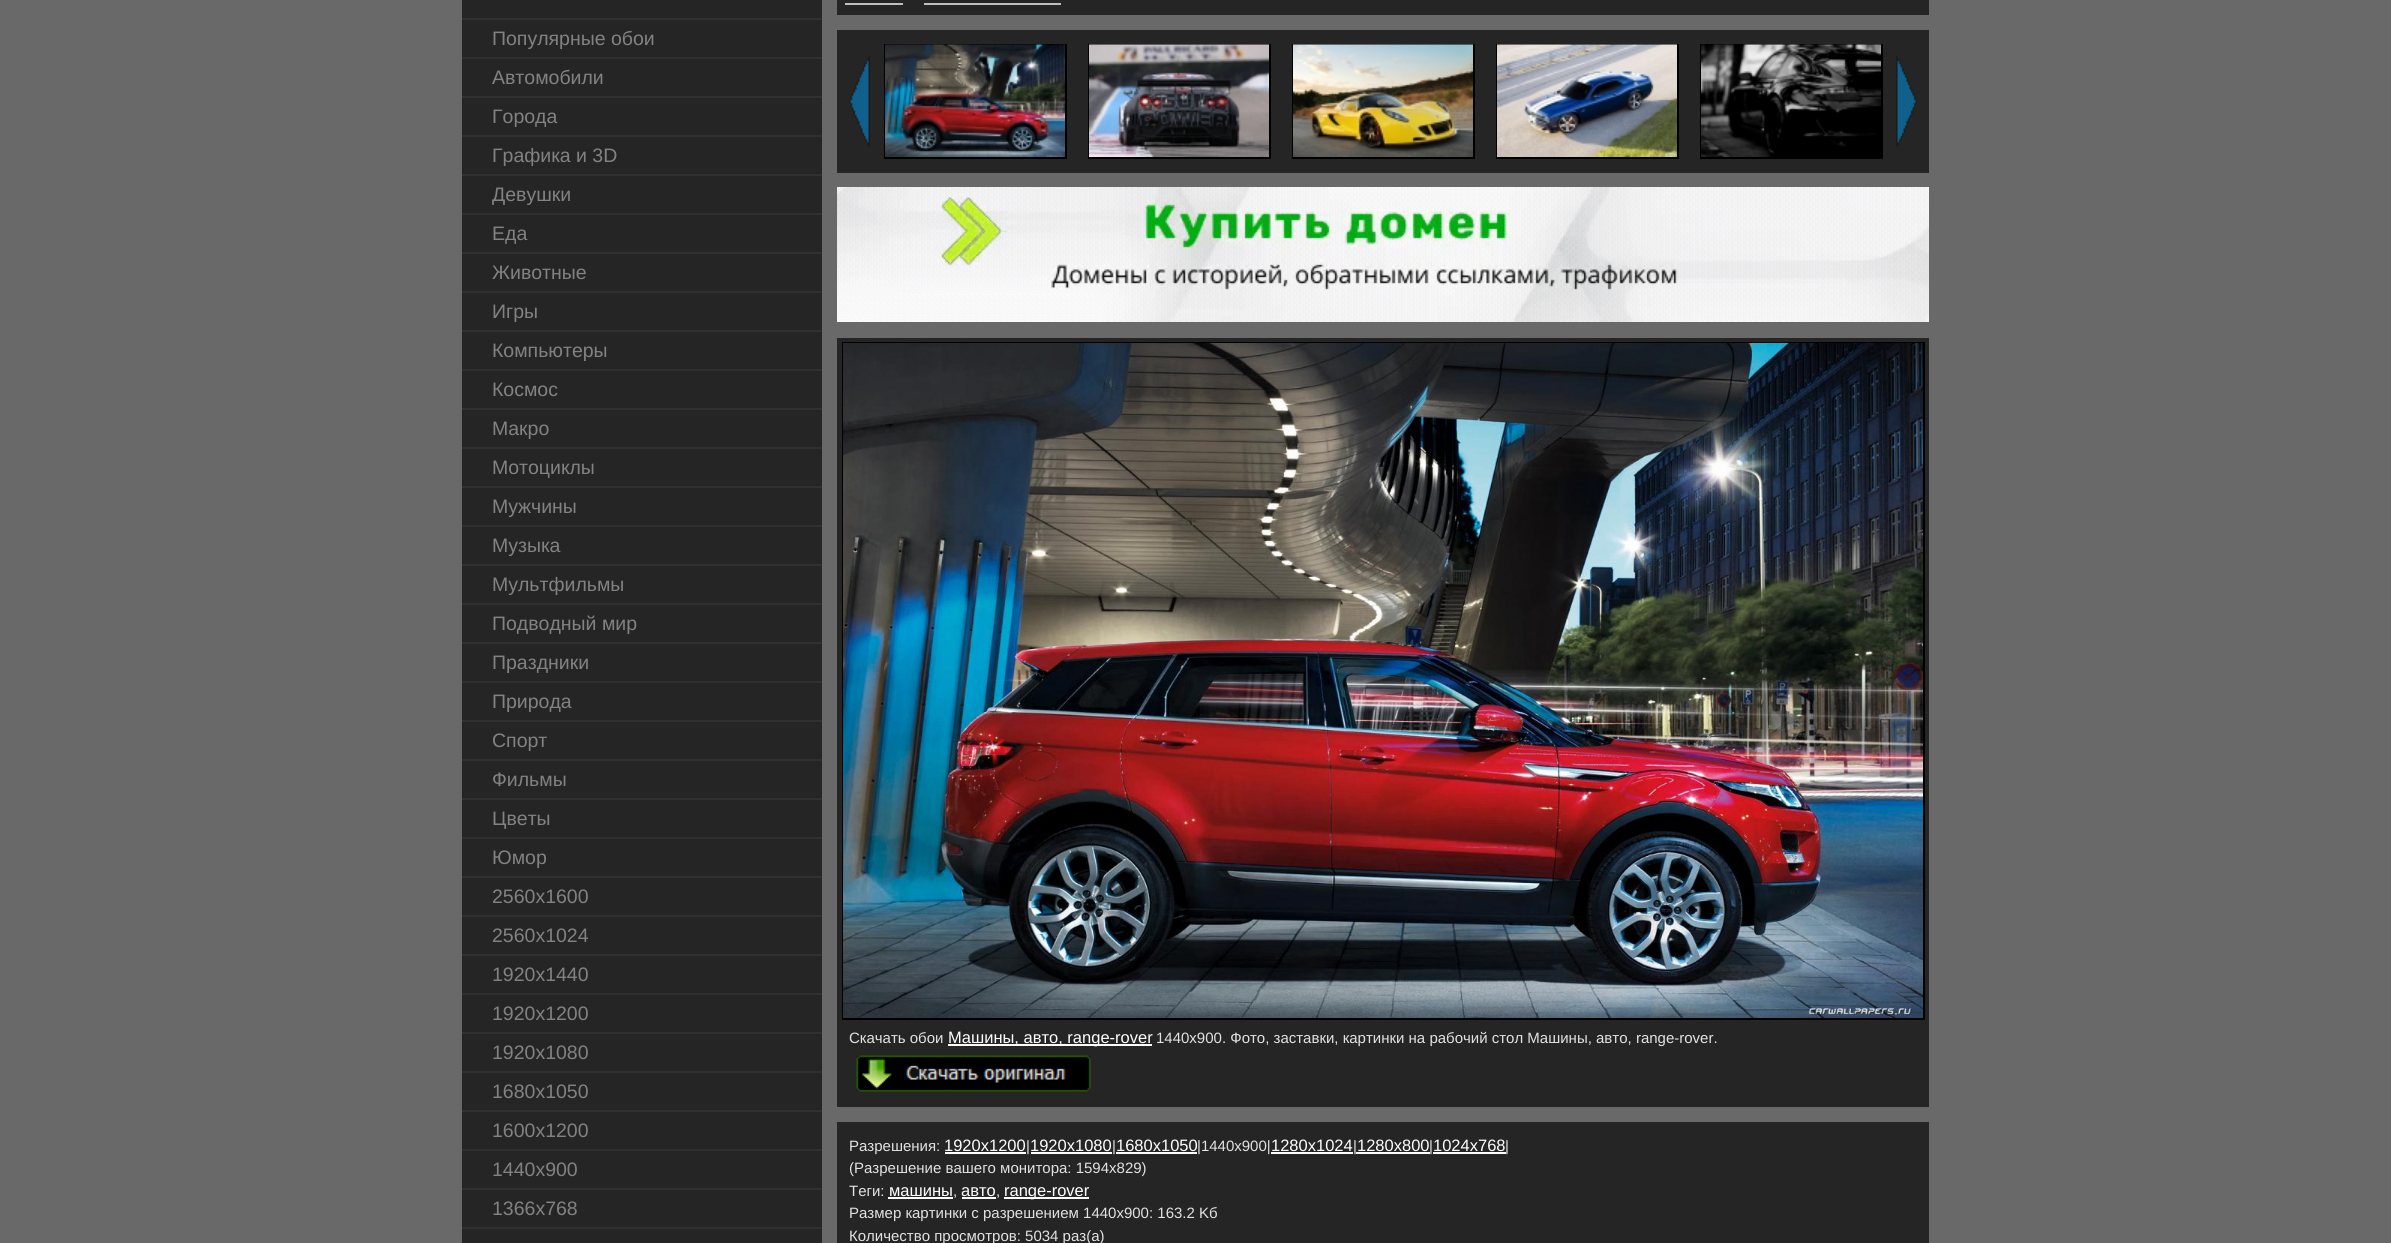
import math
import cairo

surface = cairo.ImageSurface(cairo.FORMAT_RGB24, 2391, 1243)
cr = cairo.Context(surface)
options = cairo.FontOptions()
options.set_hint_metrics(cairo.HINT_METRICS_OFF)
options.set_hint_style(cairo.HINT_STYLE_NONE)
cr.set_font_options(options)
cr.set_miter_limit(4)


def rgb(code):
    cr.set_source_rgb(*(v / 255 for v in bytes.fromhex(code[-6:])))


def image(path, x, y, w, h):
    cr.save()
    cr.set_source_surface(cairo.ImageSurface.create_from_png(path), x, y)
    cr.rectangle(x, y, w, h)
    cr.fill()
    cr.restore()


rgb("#696969")
cr.paint()
for x, y, w, h, color in [
    (462, 0, 360, 18, "#252525"),
    (462, 18, 360, 2, "#303030"),
    (462, 20, 360, 37, "#252525"),
    (462, 57, 360, 2, "#303030"),
    (462, 59, 360, 37, "#252525"),
    (462, 96, 360, 2, "#303030"),
    (462, 98, 360, 37, "#252525"),
    (462, 135, 360, 2, "#303030"),
    (462, 137, 360, 37, "#252525"),
    (462, 174, 360, 2, "#303030"),
    (462, 176, 360, 37, "#252525"),
    (462, 213, 360, 2, "#303030"),
    (462, 215, 360, 37, "#252525"),
    (462, 252, 360, 2, "#303030"),
    (462, 254, 360, 37, "#252525"),
    (462, 291, 360, 2, "#303030"),
    (462, 293, 360, 37, "#252525"),
    (462, 330, 360, 2, "#303030"),
    (462, 332, 360, 37, "#252525"),
    (462, 369, 360, 2, "#303030"),
    (462, 371, 360, 37, "#252525"),
    (462, 408, 360, 2, "#303030"),
    (462, 410, 360, 37, "#252525"),
    (462, 447, 360, 2, "#303030"),
    (462, 449, 360, 37, "#252525"),
    (462, 486, 360, 2, "#303030"),
    (462, 488, 360, 37, "#252525"),
    (462, 525, 360, 2, "#303030"),
    (462, 527, 360, 37, "#252525"),
    (462, 564, 360, 2, "#303030"),
    (462, 566, 360, 37, "#252525"),
    (462, 603, 360, 2, "#303030"),
    (462, 605, 360, 37, "#252525"),
    (462, 642, 360, 2, "#303030"),
    (462, 644, 360, 37, "#252525"),
    (462, 681, 360, 2, "#303030"),
    (462, 683, 360, 37, "#252525"),
    (462, 720, 360, 2, "#303030"),
    (462, 722, 360, 37, "#252525"),
    (462, 759, 360, 2, "#303030"),
    (462, 761, 360, 37, "#252525"),
    (462, 798, 360, 2, "#303030"),
    (462, 800, 360, 37, "#252525"),
    (462, 837, 360, 2, "#303030"),
    (462, 839, 360, 37, "#252525"),
    (462, 876, 360, 2, "#303030"),
    (462, 878, 360, 37, "#252525"),
    (462, 915, 360, 2, "#303030"),
    (462, 917, 360, 37, "#252525"),
    (462, 954, 360, 2, "#303030"),
    (462, 956, 360, 37, "#252525"),
    (462, 993, 360, 2, "#303030"),
    (462, 995, 360, 37, "#252525"),
    (462, 1032, 360, 2, "#303030"),
    (462, 1034, 360, 37, "#252525"),
    (462, 1071, 360, 2, "#303030"),
    (462, 1073, 360, 37, "#252525"),
    (462, 1110, 360, 2, "#303030"),
    (462, 1112, 360, 37, "#252525"),
    (462, 1149, 360, 2, "#303030"),
    (462, 1151, 360, 37, "#252525"),
    (462, 1188, 360, 2, "#303030"),
    (462, 1190, 360, 37, "#252525"),
    (462, 1227, 360, 2, "#303030"),
    (462, 1229, 360, 14, "#252525"),
    (837, 0, 1092, 15, "#252525"),
    (845, 3, 58, 2, "#bfbfbf"),
    (924, 3, 137, 2, "#bfbfbf"),
    (837, 30, 1092, 143, "#252525"),
]:
    rgb(color)
    cr.rectangle(x, y, w, h)
    cr.fill()
image("img/1.png", 849, 56, 21, 91)
cr.rectangle(885, 45, 181, 113)
rgb("#000000")
cr.stroke()
image("img/2.png", 885, 44, 180, 113)
cr.rectangle(1089, 45, 181, 113)
cr.stroke()
image("img/3.png", 1089, 44, 180, 113)
cr.rectangle(1293, 45, 181, 113)
cr.stroke()
image("img/4.png", 1293, 44, 180, 113)
cr.rectangle(1497, 45, 181, 113)
cr.stroke()
image("img/5.png", 1497, 44, 180, 113)
cr.rectangle(1701, 45, 181, 113)
cr.stroke()
image("img/6.png", 1701, 44, 180, 113)
image("img/7.png", 1896, 56, 21, 91)
image("img/8.png", 837, 187, 1092, 135)
rgb("#252525")
cr.rectangle(837, 338, 1092, 769)
cr.fill()
cr.rectangle(843, 343, 1081, 676)
rgb("#000000")
cr.stroke()
image("img/9.png", 843, 343, 1080, 675)
rgb("#ffffff")
cr.rectangle(948, 1044, 204, 2)
cr.fill()
image("img/10.png", 856, 1055, 235, 37)
for x, y, w, h, color in [
    (837, 1122, 1092, 121, "#252525"),
    (945, 1152, 81, 2, "#ffffff"),
    (1031, 1152, 81, 2, "#ffffff"),
    (1116, 1152, 81, 2, "#ffffff"),
    (1271, 1152, 82, 2, "#ffffff"),
    (1356, 1152, 74, 2, "#ffffff"),
    (1433, 1152, 73, 2, "#ffffff"),
    (888, 1197, 65, 2, "#ffffff"),
    (962, 1197, 34, 2, "#ffffff"),
    (1004, 1197, 85, 2, "#ffffff"),
]:
    rgb(color)
    cr.rectangle(x, y, w, h)
    cr.fill()
cr.select_font_face("Liberation Sans")
cr.set_font_size(19.5)
rgb("#828282")
for x, y, s in [
    (492, 45, "Популярные обои"),
    (492, 84, "Автомобили"),
    (492, 123, "Города"),
    (492, 162, "Графика и 3D"),
    (492, 201, "Девушки"),
    (492, 240, "Еда"),
    (492, 279, "Животные"),
    (492, 318, "Игры"),
    (492, 357, "Компьютеры"),
    (492, 396, "Космос"),
    (492, 435, "Макро"),
    (492, 474, "Мотоциклы"),
    (492, 513, "Мужчины"),
    (492, 552, "Музыка"),
    (492, 591, "Мультфильмы"),
    (492, 630, "Подводный мир"),
    (492, 669, "Праздники"),
    (492, 708, "Природа"),
    (492, 747, "Спорт"),
    (492, 786, "Фильмы"),
    (492, 825, "Цветы"),
    (492, 864, "Юмор"),
    (492, 903, "2560x1600"),
    (492, 942, "2560x1024"),
    (492, 981, "1920x1440"),
    (492, 1020, "1920x1200"),
    (492, 1059, "1920x1080"),
    (492, 1098, "1680x1050"),
    (492, 1137, "1600x1200"),
    (492, 1176, "1440x900"),
    (492, 1215, "1366x768"),
]:
    cr.move_to(x, y)
    cr.show_text(s)
cr.set_font_size(15)
rgb("#e2e2e2")
cr.move_to(849, 1043)
cr.show_text("Скачать обои")
cr.set_font_size(16.5)
rgb("#ffffff")
cr.move_to(948, 1043)
cr.show_text("Машины, авто, range-rover")
cr.set_font_size(15)
rgb("#e2e2e2")
cr.move_to(1156, 1043)
cr.show_text("1440x900. Фото, заставки, картинки на рабочий стол Машины, авто, range-rover.")
cr.move_to(849, 1151)
cr.show_text("Разрешения:")
cr.set_font_size(16.5)
rgb("#ffffff")
cr.move_to(944, 1151)
cr.show_text("1920x1200")
cr.set_font_size(15)
rgb("#e2e2e2")
cr.move_to(1026, 1151)
cr.show_text("|")
cr.set_font_size(16.5)
rgb("#ffffff")
cr.move_to(1030, 1151)
cr.show_text("1920x1080")
cr.set_font_size(15)
rgb("#e2e2e2")
cr.move_to(1112, 1151)
cr.show_text("|")
cr.set_font_size(16.5)
rgb("#ffffff")
cr.move_to(1116, 1151)
cr.show_text("1680x1050")
cr.set_font_size(15)
rgb("#e2e2e2")
cr.move_to(1197, 1151)
cr.show_text("|1440x900|")
cr.set_font_size(16.5)
rgb("#ffffff")
cr.move_to(1271, 1151)
cr.show_text("1280x1024")
cr.set_font_size(15)
rgb("#e2e2e2")
cr.move_to(1353, 1151)
cr.show_text("|")
cr.set_font_size(16.5)
rgb("#ffffff")
cr.move_to(1357, 1151)
cr.show_text("1280x800")
cr.set_font_size(15)
rgb("#e2e2e2")
cr.move_to(1429, 1151)
cr.show_text("|")
cr.set_font_size(16.5)
rgb("#ffffff")
cr.move_to(1433, 1151)
cr.show_text("1024x768")
cr.set_font_size(15)
rgb("#e2e2e2")
for x, y, s in [
    (1505, 1151, "|"),
    (849, 1173, "(Разрешение вашего монитора: 1594x829)"),
    (849, 1196, "Теги:"),
]:
    cr.move_to(x, y)
    cr.show_text(s)
cr.set_font_size(16.5)
rgb("#ffffff")
cr.move_to(889, 1196)
cr.show_text("машины")
cr.set_font_size(15)
rgb("#e2e2e2")
cr.move_to(953, 1196)
cr.show_text(",")
cr.set_font_size(16.5)
rgb("#ffffff")
cr.move_to(961, 1196)
cr.show_text("авто")
cr.set_font_size(15)
rgb("#e2e2e2")
cr.move_to(996, 1196)
cr.show_text(",")
cr.set_font_size(16.5)
rgb("#ffffff")
cr.move_to(1004, 1196)
cr.show_text("range-rover")
cr.set_font_size(15)
rgb("#e2e2e2")
cr.move_to(849, 1218)
cr.show_text("Размер картинки с разрешением 1440x900: 163.2 Kб")
cr.move_to(849, 1241)
cr.show_text("Количество просмотров: 5034 раз(а)")
surface.write_to_png("page.png")
